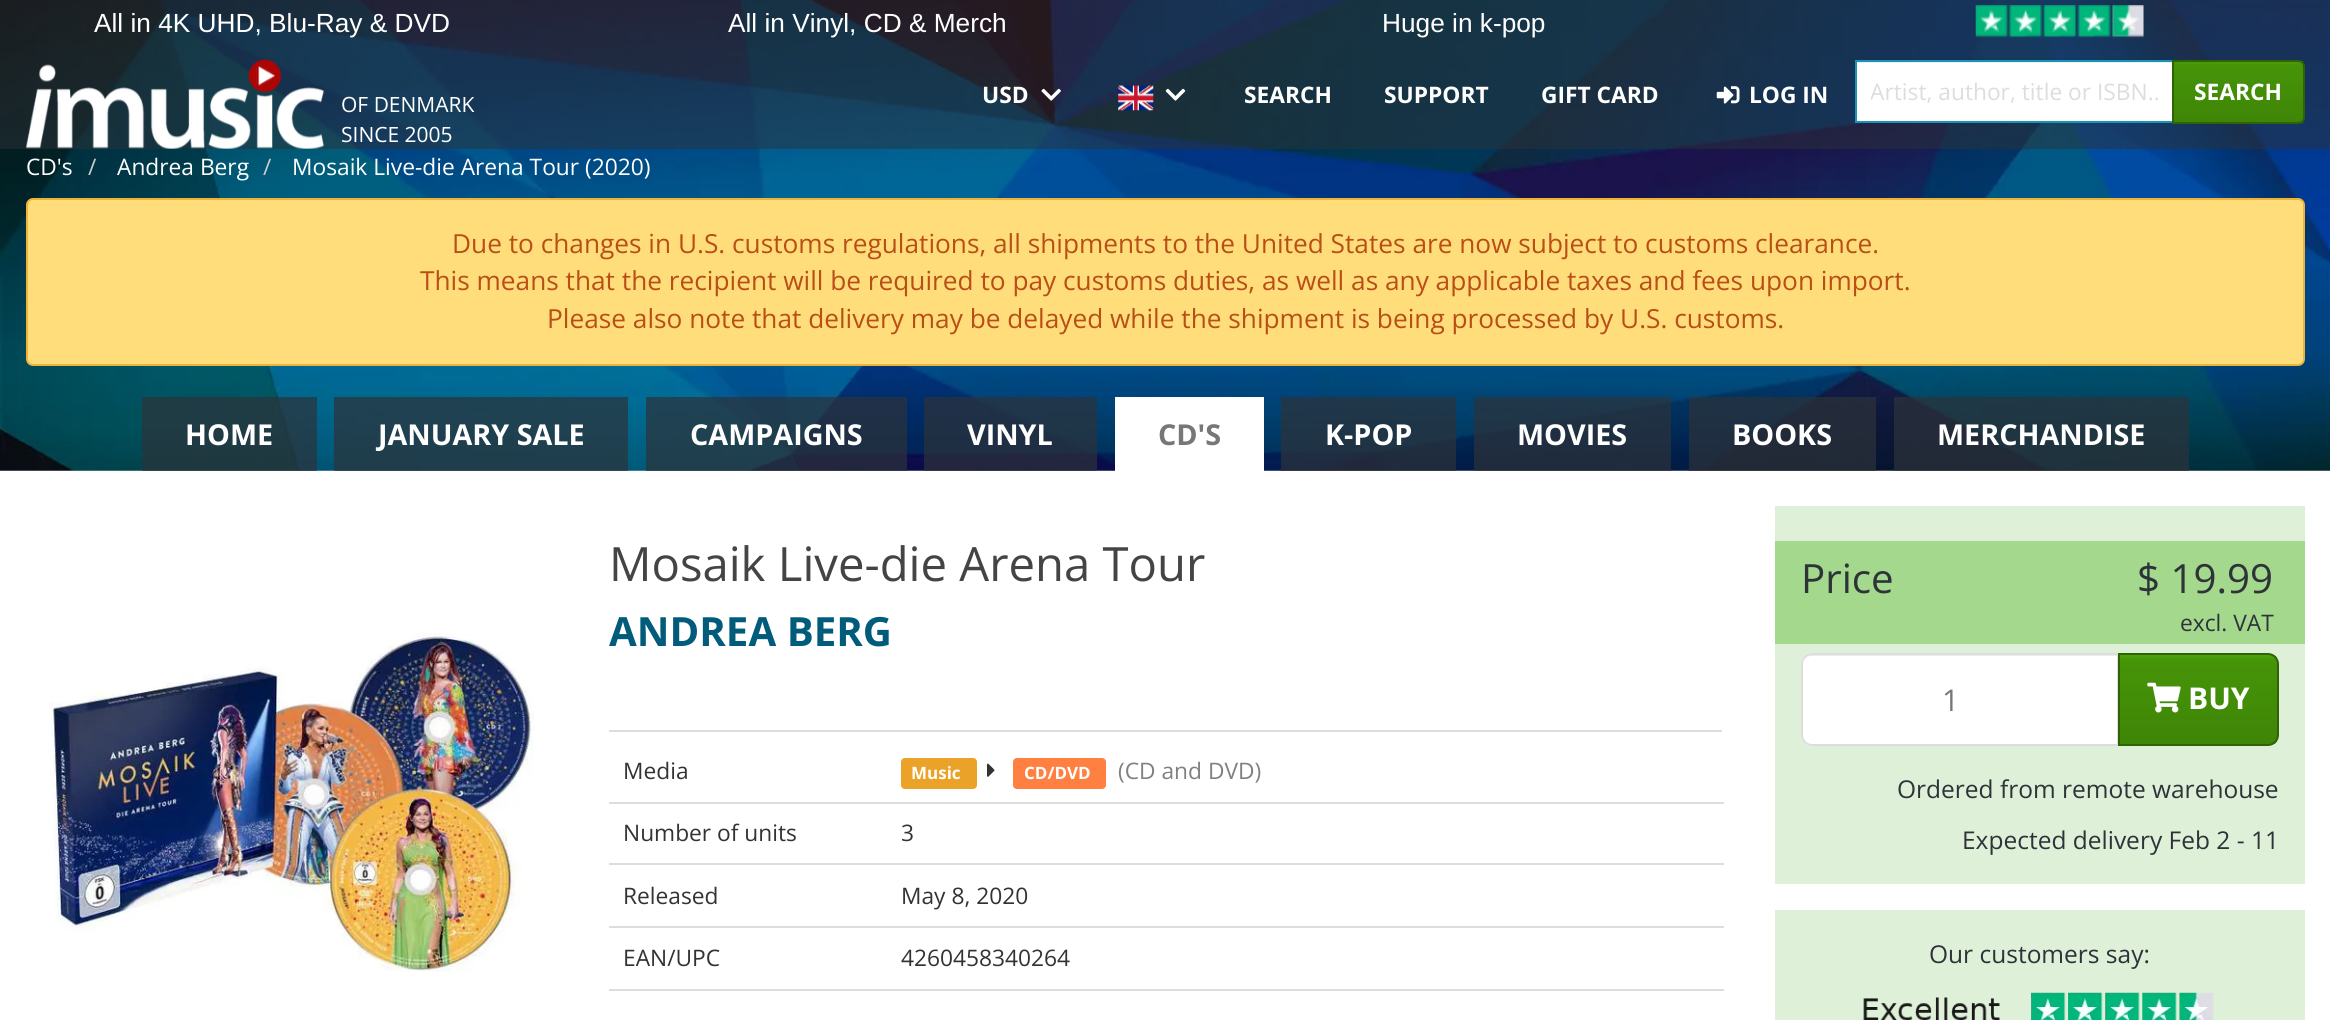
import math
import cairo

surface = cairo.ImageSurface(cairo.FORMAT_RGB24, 2330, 1020)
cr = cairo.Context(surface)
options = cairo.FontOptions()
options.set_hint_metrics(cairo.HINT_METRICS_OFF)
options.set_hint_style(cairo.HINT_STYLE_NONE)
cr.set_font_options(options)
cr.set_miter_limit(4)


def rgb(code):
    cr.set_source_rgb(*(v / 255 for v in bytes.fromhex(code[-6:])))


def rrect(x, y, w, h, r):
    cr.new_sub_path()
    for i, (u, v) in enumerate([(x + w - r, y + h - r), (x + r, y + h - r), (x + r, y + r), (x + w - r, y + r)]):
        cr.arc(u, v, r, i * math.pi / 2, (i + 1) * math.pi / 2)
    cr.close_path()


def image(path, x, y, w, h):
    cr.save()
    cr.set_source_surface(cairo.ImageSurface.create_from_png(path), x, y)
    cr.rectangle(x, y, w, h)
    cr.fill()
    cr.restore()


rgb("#ffffff")
cr.paint()
image("img/1.png", 0, 0, 2330, 471)
cr.set_source_rgba(0.176, 0.2, 0.224, 0.5)
cr.rectangle(0, 0, 2330, 149)
cr.fill()
image("img/2.png", 1975, 5, 169, 33)
image("img/3.png", 1041, 88, 20, 13)
image("img/4.png", 1118, 85, 36, 26)
image("img/5.png", 1165, 88, 21, 13)
image("img/6.png", 1716, 86, 24, 18)
rgb("#ffffff")
cr.rectangle(1857, 62, 315, 59)
cr.fill()
cr.set_source_rgba(0, 0, 0, 0.07)
cr.rectangle(1857, 62, 315, 1)
cr.fill()
cr.rectangle(1856, 61, 317, 61)
rgb("#1993b6")
cr.stroke()
gradient = cairo.LinearGradient(2238, 61, 2238, 123)
gradient.add_color_stop_rgba(0, 0.302, 0.639, 0.035, 1)
gradient.add_color_stop_rgba(0.06, 0.275, 0.58, 0.031, 1)
gradient.add_color_stop_rgba(1, 0.247, 0.522, 0.027, 1)
cr.set_source(gradient)
cr.rectangle(2174, 61, 129, 62)
cr.fill()
cr.new_path()
cr.move_to(2173, 61)
cr.line_to(2298, 61)
cr.curve_to(2301.5, 61, 2304, 63.5, 2304, 67)
cr.line_to(2304, 117)
cr.curve_to(2304, 120.5, 2301.5, 123, 2298, 123)
cr.line_to(2173, 123)
cr.close_path()
rgb("#2f6405")
cr.stroke()
image("img/7.png", 26, 59, 298, 90)
rgb("#ffdd7a")
rrect(27, 199, 2277, 166, 6)
cr.fill_preserve()
rgb("#eeb437")
cr.stroke()
cr.set_source_rgba(0.176, 0.2, 0.224, 0.7)
cr.rectangle(142, 397, 175, 74)
cr.fill()
cr.rectangle(334, 397, 294, 74)
cr.fill()
cr.rectangle(646, 397, 261, 74)
cr.fill()
cr.rectangle(924, 397, 173, 74)
cr.fill()
rgb("#ffffff")
cr.rectangle(1115, 397, 149, 74)
cr.fill()
cr.set_source_rgba(0.176, 0.2, 0.224, 0.7)
cr.rectangle(1281, 397, 175, 74)
cr.fill()
cr.rectangle(1474, 397, 197, 74)
cr.fill()
cr.rectangle(1689, 397, 187, 74)
cr.fill()
cr.rectangle(1894, 397, 295, 74)
cr.fill()
image("img/8.png", 49, 633, 485, 339)
rgb("#dddddd")
cr.rectangle(609, 730, 1113, 2)
cr.fill()
rgb("#eaa228")
rrect(901, 758, 76, 31, 4)
cr.fill()
image("img/9.png", 987, 763, 8, 14)
rgb("#ff8040")
rrect(1013, 758, 93, 31, 4)
cr.fill()
for x, y, w, h, color in [
    (609, 802, 1115, 2, "#dddddd"),
    (609, 863, 1115, 2, "#dddddd"),
    (609, 926, 1115, 2, "#dddddd"),
    (609, 989, 1115, 2, "#dddddd"),
    (1775, 506, 530, 378, "#dff0d8"),
    (1775, 541, 530, 103, "#a3d88d"),
]:
    rgb(color)
    cr.rectangle(x, y, w, h)
    cr.fill()
rgb("#ffffff")
cr.new_path()
cr.move_to(1812, 653)
cr.line_to(2119, 653)
cr.line_to(2119, 746)
cr.line_to(1812, 746)
cr.curve_to(1806, 746, 1801, 741, 1801, 735)
cr.line_to(1801, 664)
cr.curve_to(1801, 658, 1806, 653, 1812, 653)
cr.close_path()
cr.fill()
rgb("#ececec")
cr.new_path()
cr.move_to(1811, 656)
cr.line_to(2118, 656)
cr.line_to(2118, 655)
cr.line_to(1812, 655)
cr.curve_to(1809, 655, 1807, 656, 1805, 658)
cr.curve_to(1807, 657, 1809, 656, 1811, 656)
cr.close_path()
cr.fill()
cr.new_path()
cr.move_to(1812, 654)
cr.line_to(2118, 654)
cr.line_to(2118, 745)
cr.line_to(1812, 745)
cr.curve_to(1806.5, 745, 1802, 740.5, 1802, 735)
cr.line_to(1802, 664)
cr.curve_to(1802, 658.5, 1806.5, 654, 1812, 654)
cr.close_path()
rgb("#dddddd")
cr.stroke()
cr.save()
cr.new_path()
cr.move_to(2118, 653)
cr.line_to(2268, 653)
cr.curve_to(2274, 653, 2279, 658, 2279, 664)
cr.line_to(2279, 735)
cr.curve_to(2279, 741, 2274, 746, 2268, 746)
cr.line_to(2118, 746)
cr.close_path()
cr.clip()
gradient = cairo.LinearGradient(2198, 655, 2198, 744)
gradient.add_color_stop_rgba(0, 0.302, 0.639, 0.035, 1)
gradient.add_color_stop_rgba(0.06, 0.275, 0.58, 0.031, 1)
gradient.add_color_stop_rgba(1, 0.247, 0.522, 0.027, 1)
cr.set_source(gradient)
cr.rectangle(2120, 655, 157, 89)
cr.fill()
cr.restore()
cr.new_path()
cr.move_to(2119, 654)
cr.line_to(2268, 654)
cr.curve_to(2273.5, 654, 2278, 658.5, 2278, 664)
cr.line_to(2278, 735)
cr.curve_to(2278, 740.5, 2273.5, 745, 2268, 745)
cr.line_to(2119, 745)
cr.close_path()
rgb("#2f6405")
cr.stroke()
image("img/10.png", 2147, 682, 34, 31)
rgb("#dff0d8")
cr.rectangle(1775, 910, 530, 110)
cr.fill()
image("img/11.png", 1863, 992, 351, 28)
cr.select_font_face("Liberation Sans")
cr.set_font_size(26.25)
rgb("#ffffff")
for x, y, s in [
    (94, 32, "All in 4K UHD, Blu-Ray & DVD"),
    (728, 32, "All in Vinyl, CD & Merch"),
    (1382, 32, "Huge in k-pop"),
]:
    cr.move_to(x, y)
    cr.show_text(s)
cr.select_font_face("Open Sans", cairo.FONT_SLANT_NORMAL, cairo.FONT_WEIGHT_BOLD)
cr.set_font_size(22.75)
for x, y, s in [
    (982, 103, "USD"),
    (1244, 103, "SEARCH"),
    (1384, 103, "SUPPORT"),
    (1541, 103, "GIFT CARD"),
    (1749, 103, "LOG IN"),
]:
    cr.move_to(x, y)
    cr.show_text(s)
cr.save()
cr.rectangle(1871, 75, 287, 32)
cr.clip()
cr.select_font_face("Open Sans")
rgb("#dddddd")
cr.move_to(1870, 100)
cr.show_text("Artist, author, title or ISBN..")
cr.restore()
cr.move_to(2194, 100)
cr.show_text("SEARCH")
cr.select_font_face("Open Sans")
cr.set_font_size(21)
cr.move_to(341, 112)
cr.show_text("OF DENMARK")
cr.move_to(341, 142)
cr.show_text("SINCE 2005")
cr.set_font_size(22.75)
cr.move_to(26, 175)
cr.show_text("CD's")
rgb("#cccccc")
cr.move_to(88, 175)
cr.show_text("/")
rgb("#ffffff")
cr.move_to(117, 175)
cr.show_text("Andrea Berg")
rgb("#cccccc")
cr.move_to(263, 175)
cr.show_text("/")
rgb("#ffffff")
cr.move_to(292, 175)
cr.show_text("Mosaik Live-die Arena Tour (2020)")
cr.set_font_size(26.25)
rgb("#b94e17")
for x, y, s in [
    (452, 253, "Due to changes in U.S. customs regulations, all shipments to the United States are now subject to customs clearance."),
    (420, 290, "This means that the recipient will be required to pay customs duties, as well as any applicable taxes and fees upon import."),
    (547, 328, "Please also note that delivery may be delayed while the shipment is being processed by U.S. customs."),
]:
    cr.move_to(x, y)
    cr.show_text(s)
cr.select_font_face("Open Sans", cairo.FONT_SLANT_NORMAL, cairo.FONT_WEIGHT_BOLD)
cr.set_font_size(28.75)
rgb("#ffffff")
for x, y, s in [
    (185, 445, "HOME"),
    (378, 445, "JANUARY SALE"),
    (690, 445, "CAMPAIGNS"),
    (967, 445, "VINYL"),
]:
    cr.move_to(x, y)
    cr.show_text(s)
rgb("#777777")
cr.move_to(1158, 445)
cr.show_text("CD'S")
rgb("#ffffff")
for x, y, s in [
    (1325, 445, "K-POP"),
    (1517, 445, "MOVIES"),
    (1732, 445, "BOOKS"),
    (1937, 445, "MERCHANDISE"),
]:
    cr.move_to(x, y)
    cr.show_text(s)
cr.select_font_face("Open Sans")
cr.set_font_size(47.25)
rgb("#444444")
cr.move_to(609, 581)
cr.show_text("Mosaik Live-die Arena Tour")
cr.select_font_face("Open Sans", cairo.FONT_SLANT_NORMAL, cairo.FONT_WEIGHT_BOLD)
cr.set_font_size(40.25)
rgb("#015b7b")
cr.move_to(609, 646)
cr.show_text("ANDREA BERG")
cr.select_font_face("Open Sans")
cr.set_font_size(22.75)
rgb("#333333")
cr.move_to(623, 779)
cr.show_text("Media")
cr.select_font_face("Open Sans", cairo.FONT_SLANT_NORMAL, cairo.FONT_WEIGHT_BOLD)
cr.set_font_size(17)
rgb("#ffffff")
cr.move_to(911, 779)
cr.show_text("Music")
cr.move_to(1024, 779)
cr.show_text("CD/DVD")
cr.select_font_face("Open Sans")
cr.set_font_size(22.75)
rgb("#808080")
cr.move_to(1118, 779)
cr.show_text("(CD and DVD)")
rgb("#333333")
for x, y, s in [
    (623, 841, "Number of units"),
    (901, 841, "3"),
    (623, 904, "Released"),
    (901, 904, "May 8, 2020"),
    (623, 966, "EAN/UPC"),
    (901, 966, "4260458340264"),
]:
    cr.move_to(x, y)
    cr.show_text(s)
cr.set_font_size(40.25)
rgb("#2d3339")
cr.move_to(1801, 593)
cr.show_text("Price")
cr.move_to(2137, 593)
cr.show_text("$ 19.99")
cr.set_font_size(22.75)
cr.move_to(2180, 631)
cr.show_text("excl. VAT")
cr.set_font_size(30)
rgb("#777777")
cr.move_to(1942, 711)
cr.show_text("1")
cr.select_font_face("Open Sans", cairo.FONT_SLANT_NORMAL, cairo.FONT_WEIGHT_BOLD)
rgb("#ffffff")
cr.move_to(2188, 709)
cr.show_text("BUY")
cr.select_font_face("Open Sans")
cr.set_font_size(24.5)
rgb("#2d3339")
for x, y, s in [
    (1897, 798, "Ordered from remote warehouse"),
    (1962, 849, "Expected delivery Feb 2 - 11"),
    (1929, 963, "Our customers say:"),
]:
    cr.move_to(x, y)
    cr.show_text(s)
surface.write_to_png("page.png")
